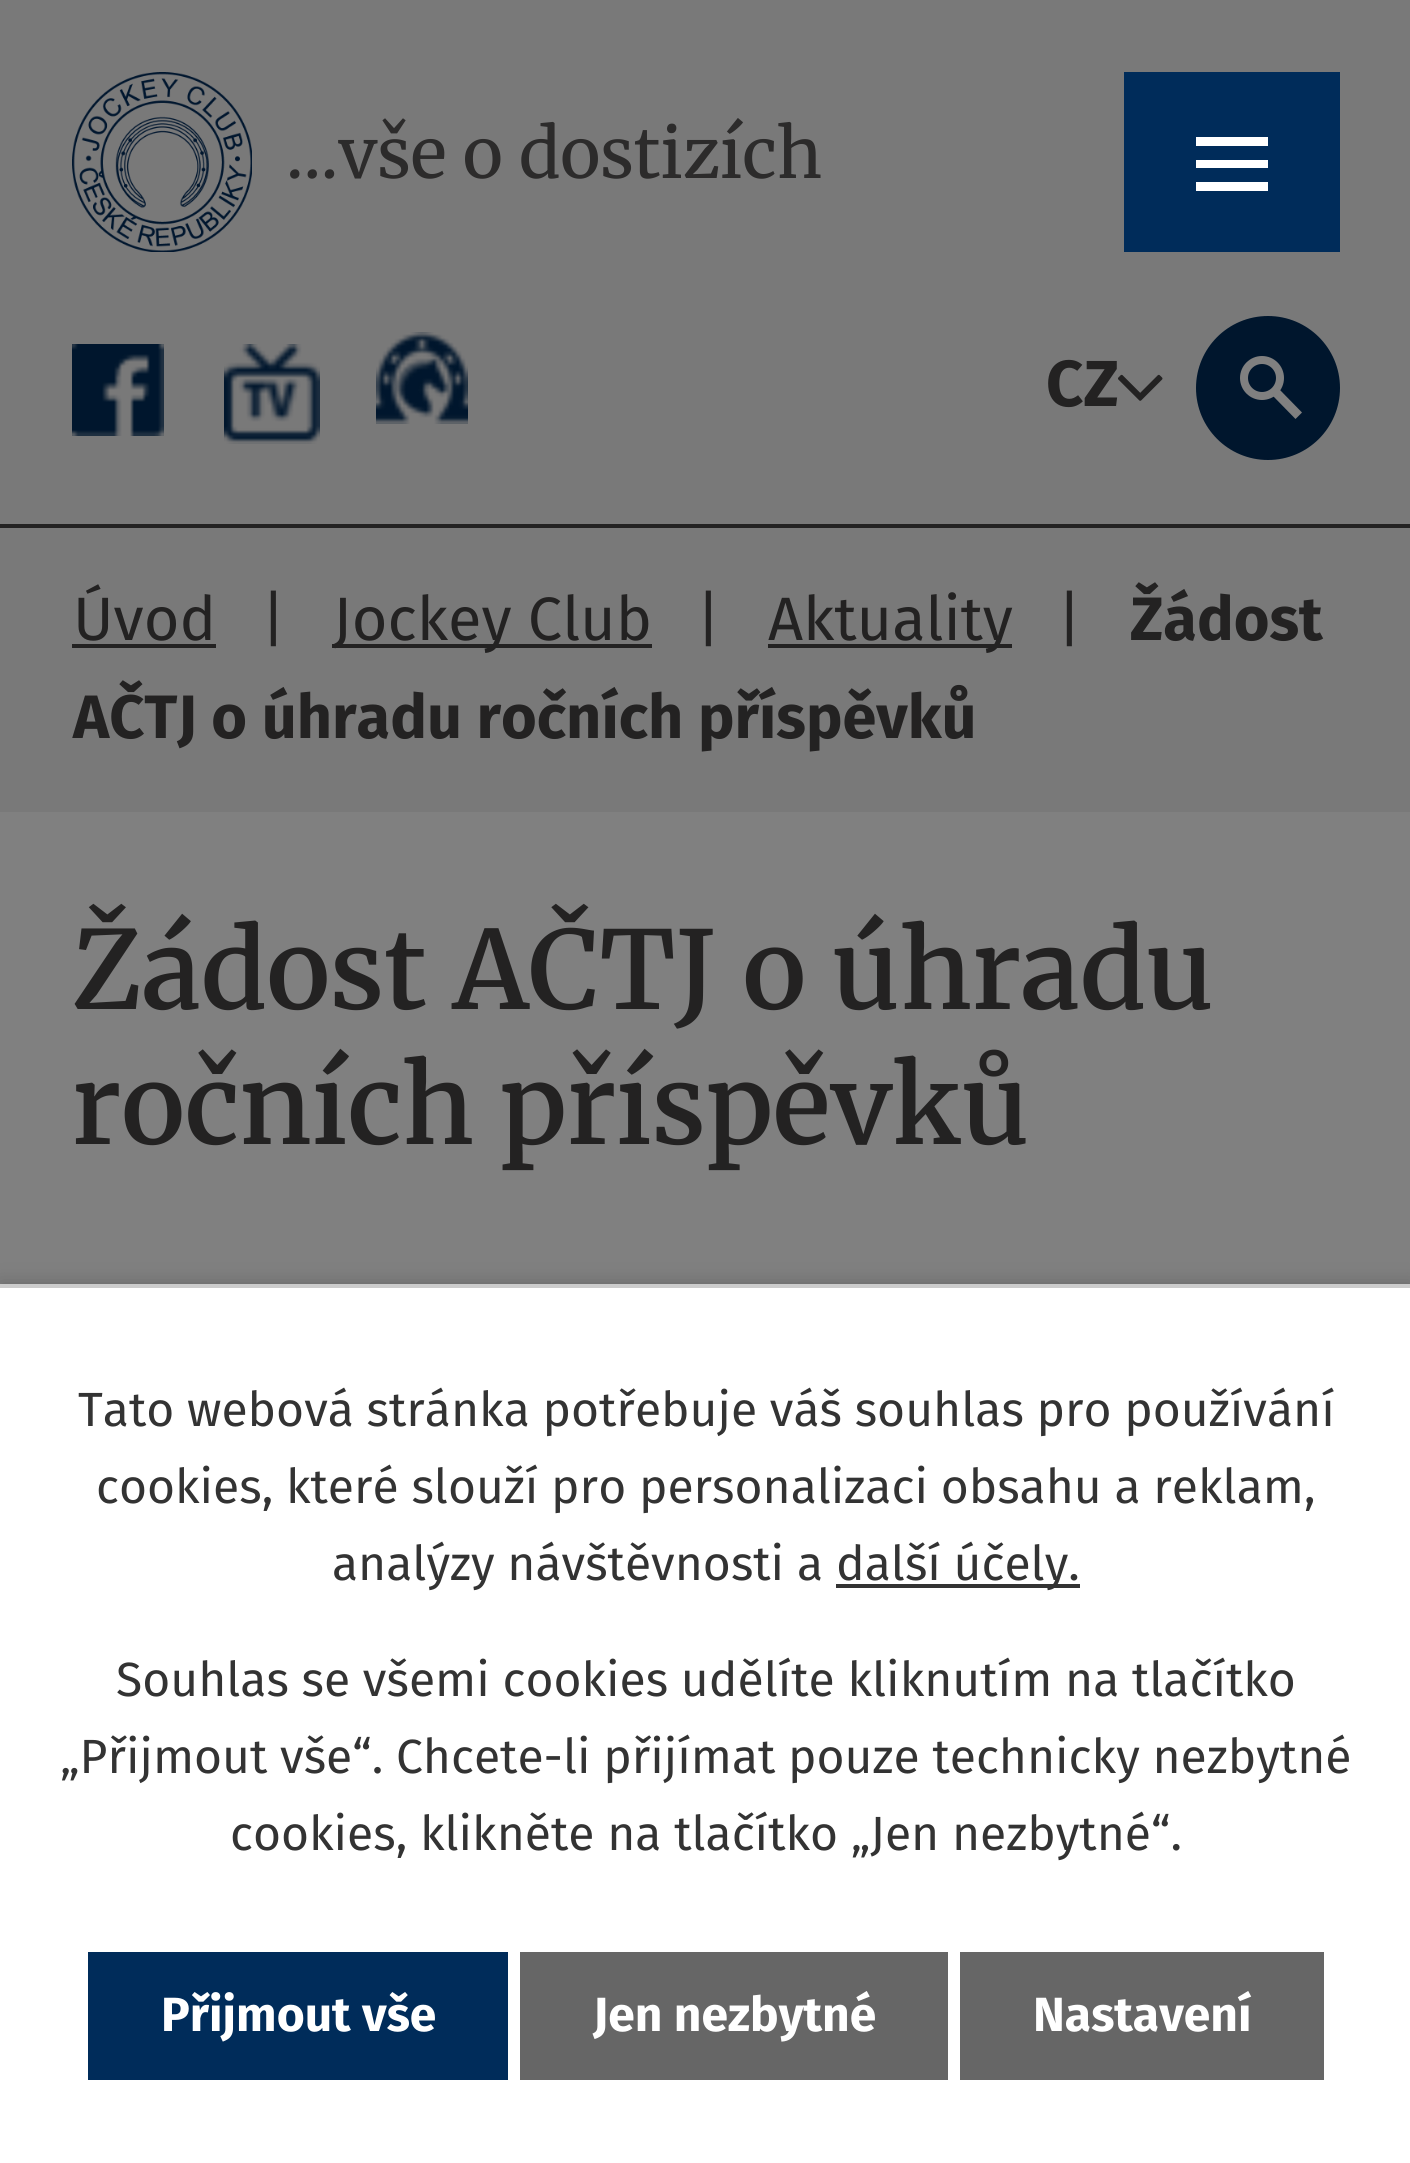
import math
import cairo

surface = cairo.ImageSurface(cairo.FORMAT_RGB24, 1410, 2163)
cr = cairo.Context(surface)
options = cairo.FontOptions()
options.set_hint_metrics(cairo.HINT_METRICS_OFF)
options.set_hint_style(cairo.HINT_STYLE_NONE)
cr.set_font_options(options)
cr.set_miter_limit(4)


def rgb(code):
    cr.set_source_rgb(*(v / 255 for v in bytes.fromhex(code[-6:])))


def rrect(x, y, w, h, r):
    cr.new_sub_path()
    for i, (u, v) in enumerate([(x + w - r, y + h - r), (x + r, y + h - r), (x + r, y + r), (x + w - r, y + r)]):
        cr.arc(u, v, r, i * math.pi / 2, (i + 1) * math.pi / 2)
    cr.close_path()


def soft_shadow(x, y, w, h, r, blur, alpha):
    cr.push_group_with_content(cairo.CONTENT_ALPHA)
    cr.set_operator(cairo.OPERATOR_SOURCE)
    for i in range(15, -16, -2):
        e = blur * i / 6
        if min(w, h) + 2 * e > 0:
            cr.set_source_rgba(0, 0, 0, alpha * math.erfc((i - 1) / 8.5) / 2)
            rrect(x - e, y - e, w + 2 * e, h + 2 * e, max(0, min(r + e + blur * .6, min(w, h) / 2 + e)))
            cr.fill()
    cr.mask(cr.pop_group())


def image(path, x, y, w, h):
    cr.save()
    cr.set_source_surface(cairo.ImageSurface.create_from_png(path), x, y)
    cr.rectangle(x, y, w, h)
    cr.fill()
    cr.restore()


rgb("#808080")
cr.paint()
rgb("#797979")
cr.rectangle(0, 0, 1410, 524)
cr.fill()
image("img/1.png", 72, 72, 180, 180)
image("img/2.png", 72, 344, 92, 92)
image("img/3.png", 224, 344, 96, 100)
image("img/4.png", 376, 332, 92, 92)
image("img/5.png", 1118, 374, 45, 27)
rgb("#00162d")
cr.arc(1268, 388, 70, 0, 2 * math.pi)
cr.fill_preserve()
cr.set_line_width(4)
cr.stroke()
cr.arc(1262, 378, 18, 0, 2 * math.pi)
rgb("#808080")
cr.set_line_width(8)
cr.stroke()
cr.new_path()
cr.move_to(1279, 389)
cr.line_to(1302, 412.5)
cr.line_to(1295.5, 419)
cr.line_to(1272.5, 395.5)
cr.close_path()
cr.fill()
rgb("#002c5a")
cr.rectangle(1124, 72, 216, 180)
cr.fill()
rgb("#ffffff")
cr.new_path()
cr.move_to(1196, 191)
cr.line_to(1196, 182)
cr.line_to(1268, 182)
cr.line_to(1268, 191)
cr.close_path()
cr.move_to(1196, 137)
cr.line_to(1268, 137)
cr.line_to(1268, 146)
cr.line_to(1196, 146)
cr.close_path()
cr.move_to(1196, 168)
cr.line_to(1196, 160)
cr.line_to(1268, 160)
cr.line_to(1268, 168)
cr.close_path()
cr.fill()
for x, y, w, h, color in [
    (0, 528, 1410, 284, "#797979"),
    (0, 524, 1410, 4, "#232222"),
    (72, 644, 144, 4, "#232222"),
    (332, 644, 320, 4, "#232222"),
    (768, 644, 244, 4, "#232222"),
]:
    rgb(color)
    cr.rectangle(x, y, w, h)
    cr.fill()
rgb("#000000")
soft_shadow(0, 1284, 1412, 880, 0, 10, 0.2)
for x, y, w, h, color in [
    (0, 1288, 1410, 875, "#ffffff"),
    (0, 1284, 1410, 4, "#cccccc"),
    (836, 1584, 244, 4, "#333333"),
    (88, 1952, 420, 128, "#002c5a"),
    (520, 1952, 428, 128, "#666666"),
    (960, 1952, 364, 128, "#666666"),
]:
    rgb(color)
    cr.rectangle(x, y, w, h)
    cr.fill()
cr.select_font_face("Merriweather")
cr.set_font_size(68.5)
rgb("#2c2b2b")
cr.move_to(286, 178)
cr.show_text("...vše o dostizích")
cr.select_font_face("Fira Sans", cairo.FONT_SLANT_NORMAL, cairo.FONT_WEIGHT_BOLD)
cr.set_font_size(65)
rgb("#232222")
cr.move_to(1046, 406)
cr.show_text("CZ")
cr.select_font_face("Fira Sans")
cr.set_font_size(61.25)
for x, y, s in [
    (73, 640, "Úvod"),
    (261, 640, "|"),
    (333, 640, "Jockey Club"),
    (696, 640, "|"),
    (768, 640, "Aktuality"),
    (1057, 640, "|"),
]:
    cr.move_to(x, y)
    cr.show_text(s)
cr.select_font_face("Fira Sans", cairo.FONT_SLANT_NORMAL, cairo.FONT_WEIGHT_BOLD)
cr.move_to(1130, 640)
cr.show_text("Žádost")
cr.move_to(73, 738)
cr.show_text("AČTJ o úhradu ročních příspěvků")
cr.select_font_face("Merriweather SemiBold")
cr.set_font_size(108)
cr.move_to(72, 1009)
cr.show_text("Žádost AČTJ o úhradu")
cr.move_to(72, 1144)
cr.show_text("ročních příspěvků")
cr.select_font_face("Fira Sans")
cr.set_font_size(48)
rgb("#333333")
for x, y, s in [
    (78, 1426, "Tato webová stránka potřebuje váš souhlas pro používání"),
    (96, 1503, "cookies, které slouží pro personalizaci obsahu a reklam,"),
    (332, 1580, "analýzy návštěvnosti a"),
    (836, 1580, "další účely."),
    (116, 1696, "Souhlas se všemi cookies udělíte kliknutím na tlačítko"),
    (60, 1773, "„Přijmout vše“. Chcete-li přijímat pouze technicky nezbytné"),
    (230, 1850, "cookies, klikněte na tlačítko „Jen nezbytné“."),
]:
    cr.move_to(x, y)
    cr.show_text(s)
cr.select_font_face("Fira Sans", cairo.FONT_SLANT_NORMAL, cairo.FONT_WEIGHT_BOLD)
rgb("#ffffff")
for x, y, s in [
    (161, 2031, "Přijmout vše"),
    (593, 2031, "Jen nezbytné"),
    (1033, 2031, "Nastavení"),
]:
    cr.move_to(x, y)
    cr.show_text(s)
surface.write_to_png("page.png")
